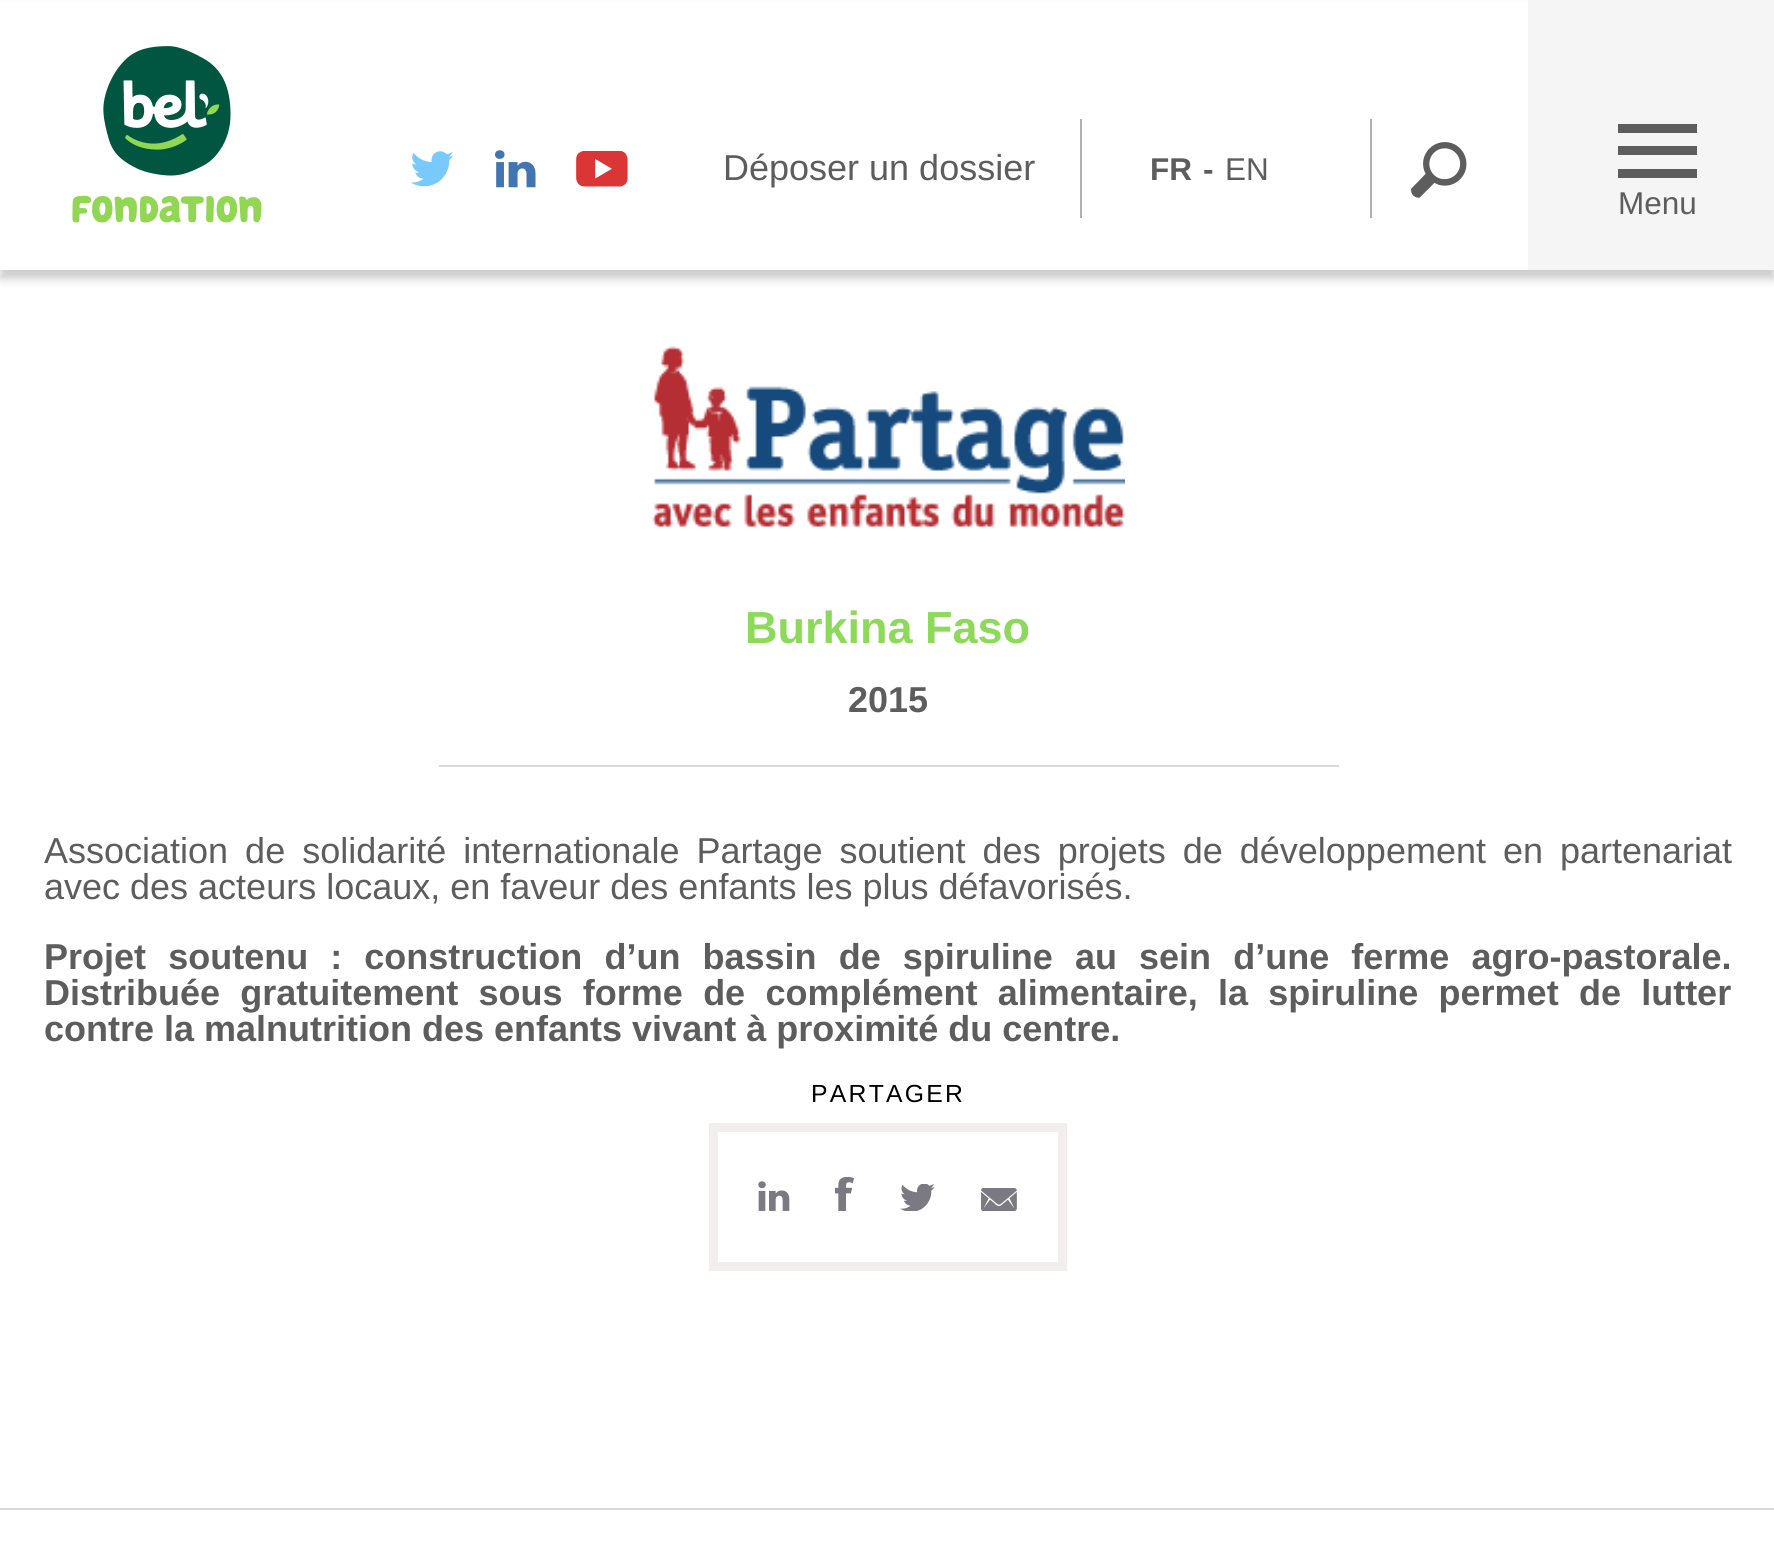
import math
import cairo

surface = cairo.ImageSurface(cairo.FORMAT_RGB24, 1774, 1555)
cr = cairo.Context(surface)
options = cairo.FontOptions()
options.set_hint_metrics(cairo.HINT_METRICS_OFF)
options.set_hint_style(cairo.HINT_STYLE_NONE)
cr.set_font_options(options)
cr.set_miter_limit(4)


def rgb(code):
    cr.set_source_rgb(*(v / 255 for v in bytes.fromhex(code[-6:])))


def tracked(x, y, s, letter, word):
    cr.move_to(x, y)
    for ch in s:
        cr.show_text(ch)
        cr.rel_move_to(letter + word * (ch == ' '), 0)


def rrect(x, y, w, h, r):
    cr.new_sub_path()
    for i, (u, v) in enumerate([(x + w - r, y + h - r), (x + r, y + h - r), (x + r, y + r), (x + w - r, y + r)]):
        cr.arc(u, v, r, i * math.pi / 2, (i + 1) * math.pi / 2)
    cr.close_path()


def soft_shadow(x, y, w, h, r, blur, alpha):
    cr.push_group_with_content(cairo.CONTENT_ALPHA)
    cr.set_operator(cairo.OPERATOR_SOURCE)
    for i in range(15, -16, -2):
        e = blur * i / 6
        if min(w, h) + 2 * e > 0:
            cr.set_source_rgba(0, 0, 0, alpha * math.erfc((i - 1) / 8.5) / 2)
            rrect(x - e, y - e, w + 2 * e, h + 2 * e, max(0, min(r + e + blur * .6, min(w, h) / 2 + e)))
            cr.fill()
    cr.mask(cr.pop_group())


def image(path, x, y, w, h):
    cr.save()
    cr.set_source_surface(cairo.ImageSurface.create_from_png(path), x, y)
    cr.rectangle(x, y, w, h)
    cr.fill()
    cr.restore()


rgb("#ffffff")
cr.paint()
rgb("#000000")
soft_shadow(0, 9, 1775, 270, 0, 4.5, 0.2)
rgb("#ffffff")
cr.rectangle(0, 2, 1528, 268)
cr.fill()
image("img/1.png", 72, 46, 190, 177)
image("img/2.png", 410, 151, 44, 36)
image("img/3.png", 495, 150, 41, 38)
image("img/4.png", 576, 151, 52, 36)
rgb("#b0b0b0")
cr.rectangle(1080, 119, 2, 99)
cr.fill()
cr.rectangle(1370, 119, 2, 99)
cr.fill()
image("img/5.png", 1411, 142, 56, 56)
for x, y, w, h, color in [
    (1528, 0, 246, 270, "#f5f5f5"),
    (1618, 124, 79, 9, "#5d5d5d"),
    (1618, 146, 79, 9, "#5d5d5d"),
    (1618, 169, 79, 9, "#5d5d5d"),
]:
    rgb(color)
    cr.rectangle(x, y, w, h)
    cr.fill()
image("img/6.png", 652, 346, 473, 181)
rgb("#d8d8d8")
cr.rectangle(439, 765, 900, 2)
cr.fill()
cr.rectangle(713.5, 1127.5, 349, 139)
rgb("#f2eeee")
cr.set_line_width(9)
cr.stroke()
image("img/7.png", 758, 1181, 32, 30)
image("img/8.png", 835, 1177, 19, 34)
image("img/9.png", 900, 1184, 35, 27)
image("img/10.png", 981, 1188, 36, 23)
rgb("#d9d9d9")
cr.rectangle(0, 1508, 1774, 2)
cr.fill()
cr.select_font_face("Liberation Sans")
cr.set_font_size(36)
rgb("#5d5d5d")
cr.move_to(723, 180)
cr.show_text("Déposer un dossier")
cr.select_font_face("Liberation Sans", cairo.FONT_SLANT_NORMAL, cairo.FONT_WEIGHT_BOLD)
cr.set_font_size(31.5)
cr.move_to(1150, 180)
cr.show_text("FR")
cr.move_to(1203, 180)
cr.show_text("-")
cr.select_font_face("Liberation Sans")
cr.move_to(1225, 180)
cr.show_text("EN")
cr.move_to(1618, 214)
cr.show_text("Menu")
cr.select_font_face("Liberation Sans", cairo.FONT_SLANT_NORMAL, cairo.FONT_WEIGHT_BOLD)
cr.set_font_size(45)
rgb("#8dda5a")
cr.move_to(745, 643)
cr.show_text("Burkina Faso")
cr.set_font_size(36)
rgb("#5d5d5d")
cr.move_to(848, 712)
cr.show_text("2015")
cr.select_font_face("Liberation Sans")
tracked(44, 863, "Association de solidarité internationale Partage soutient des projets de développement en partenariat", 0, 7)
cr.move_to(44, 899)
cr.show_text("avec des acteurs locaux, en faveur des enfants les plus défavorisés.")
cr.select_font_face("Liberation Sans", cairo.FONT_SLANT_NORMAL, cairo.FONT_WEIGHT_BOLD)
tracked(44, 969, "Projet soutenu : construction d’un bassin de spiruline au sein d’une ferme agro-pastorale.", 0, 12.1)
tracked(44, 1005, "Distribuée gratuitement sous forme de complément alimentaire, la spiruline permet de lutter", 0, 10.25)
cr.move_to(44, 1041)
cr.show_text("contre la malnutrition des enfants vivant à proximité du centre.")
cr.select_font_face("Liberation Sans")
cr.set_font_size(24.75)
rgb("#000000")
tracked(811, 1102, "PARTAGER", 2.25, 0)
surface.write_to_png("page.png")
